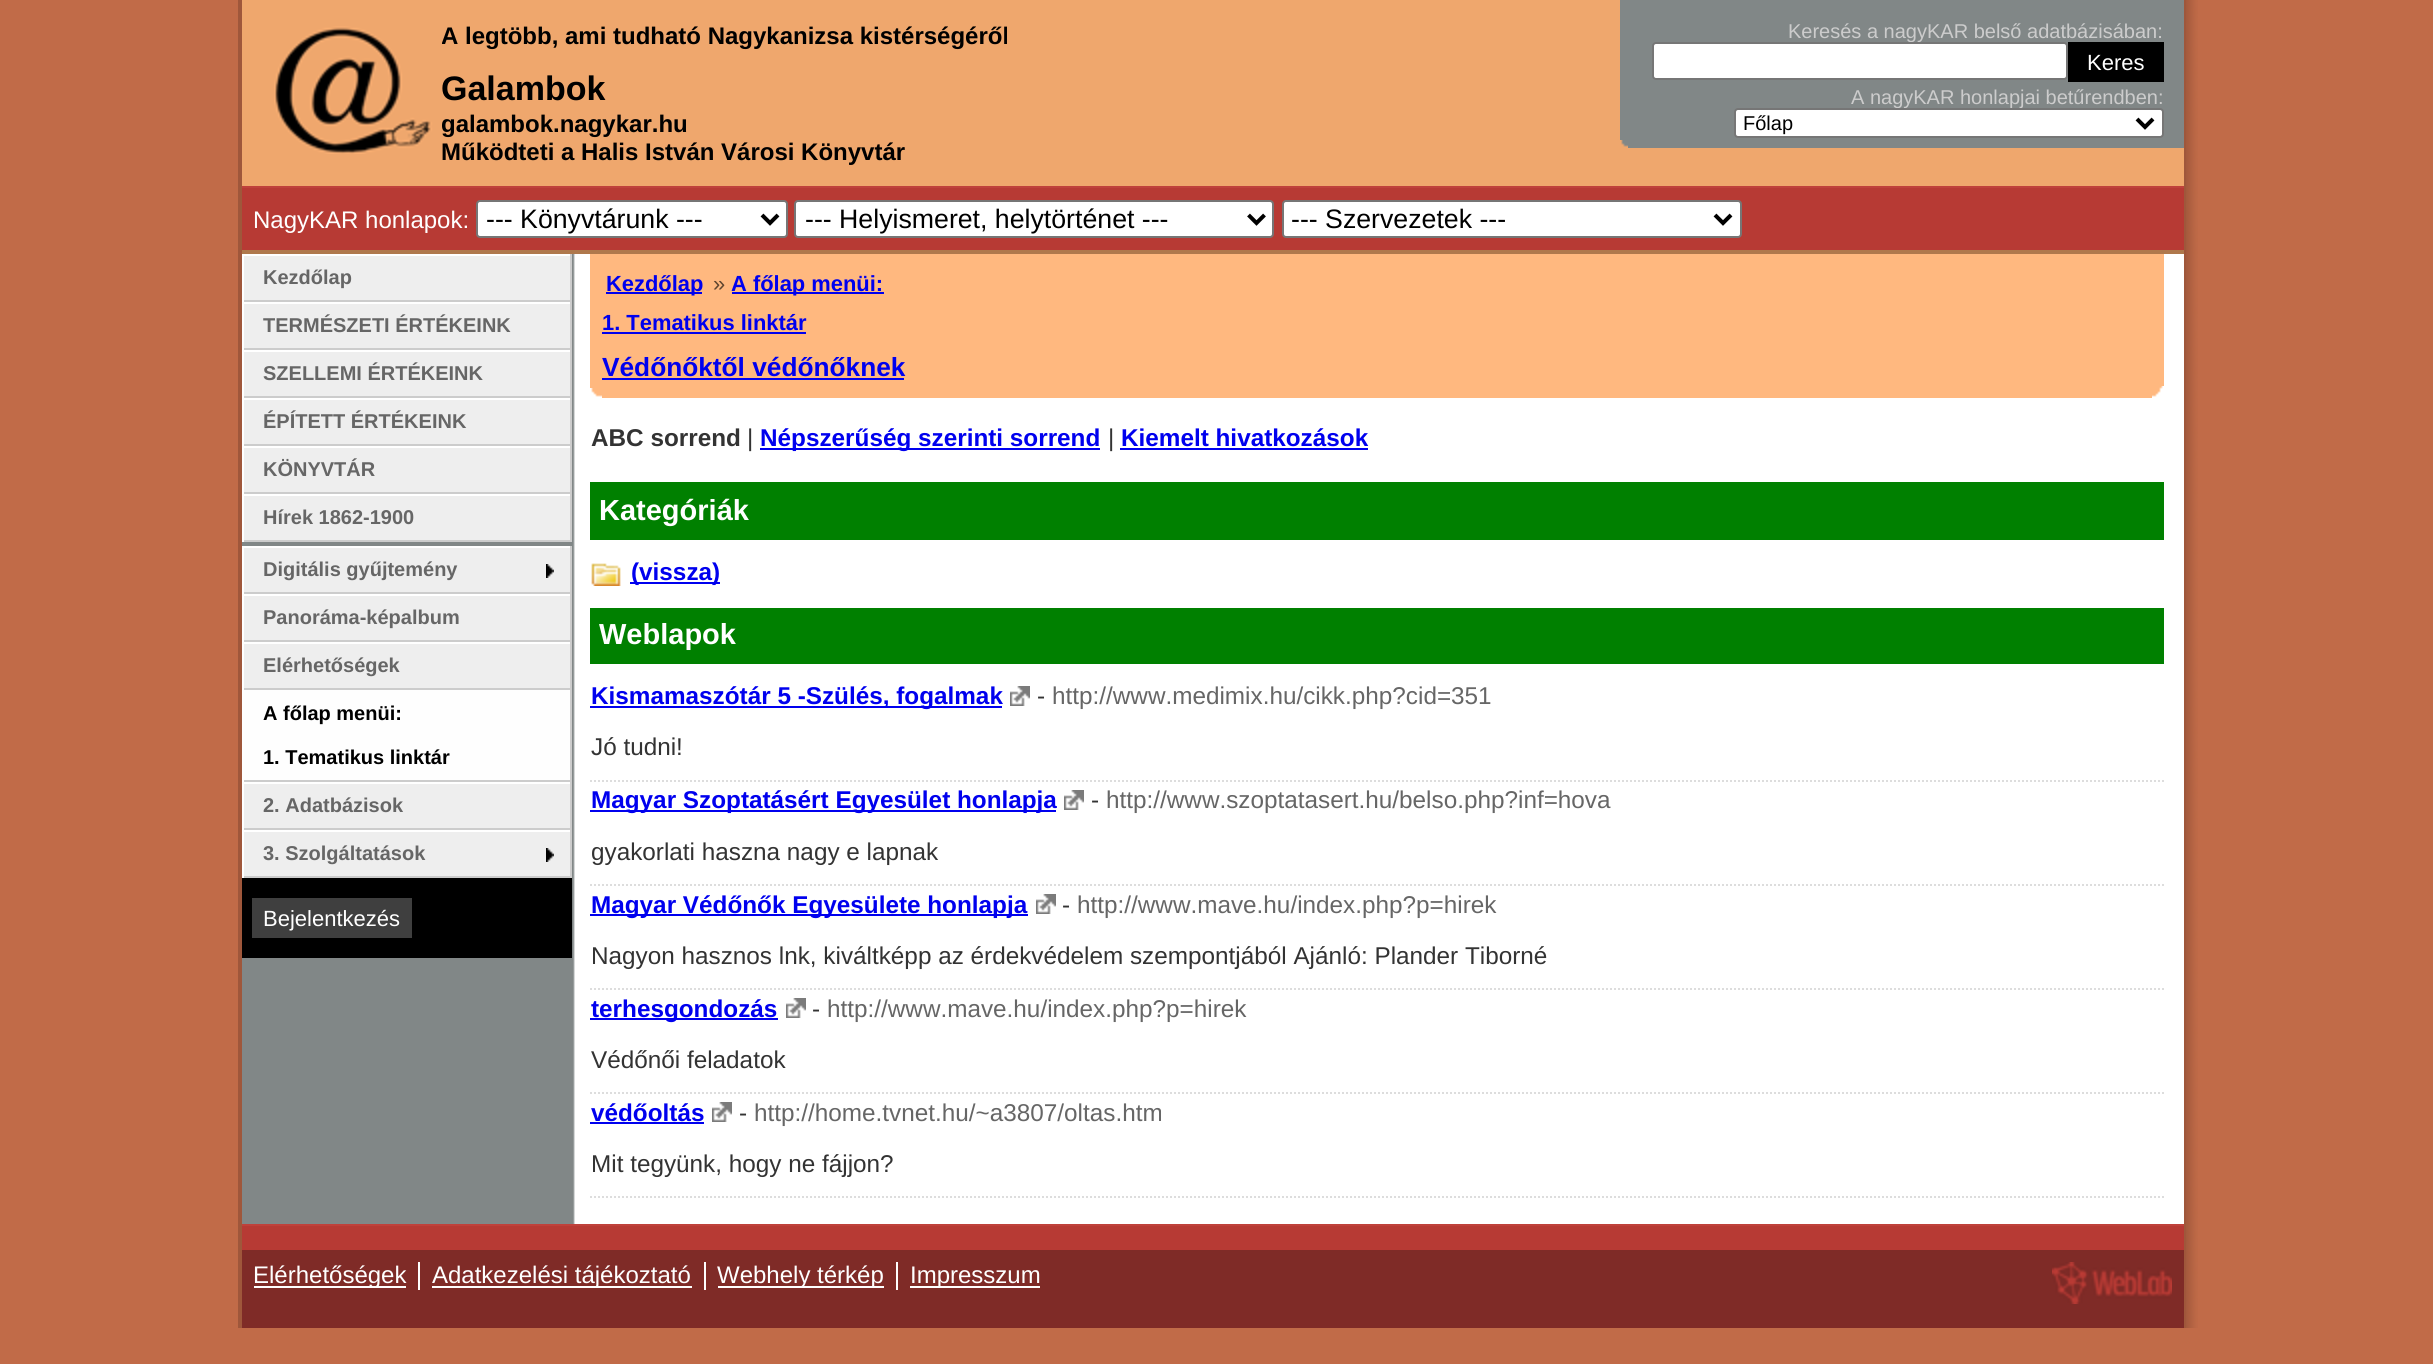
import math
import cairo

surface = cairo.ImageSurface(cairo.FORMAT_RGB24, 2433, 1364)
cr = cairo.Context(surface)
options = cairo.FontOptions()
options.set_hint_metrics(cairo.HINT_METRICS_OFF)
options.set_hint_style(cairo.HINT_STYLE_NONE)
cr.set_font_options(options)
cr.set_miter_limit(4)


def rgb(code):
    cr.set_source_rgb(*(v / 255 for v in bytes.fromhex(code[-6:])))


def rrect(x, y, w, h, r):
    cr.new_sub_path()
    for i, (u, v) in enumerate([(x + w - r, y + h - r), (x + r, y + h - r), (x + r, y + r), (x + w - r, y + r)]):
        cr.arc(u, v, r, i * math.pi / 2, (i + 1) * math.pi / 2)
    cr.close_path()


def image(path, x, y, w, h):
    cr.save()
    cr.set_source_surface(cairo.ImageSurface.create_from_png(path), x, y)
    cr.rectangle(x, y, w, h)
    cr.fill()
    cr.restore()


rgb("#c16b48")
cr.paint()
rgb("#9f573b")
cr.rectangle(238, 0, 1948, 1328)
cr.fill()
image("img/1.png", 2186, 0, 12, 1328)
rgb("#ffffff")
cr.rectangle(575, 254, 1609, 970)
cr.fill()
image("img/2.png", 242, 254, 333, 970)
for x, y, w, h, color in [
    (242, 0, 1942, 186, "#efa76d"),
    (242, 250, 1942, 4, "#af784c"),
    (1620, 0, 564, 148, "#818787"),
]:
    rgb(color)
    cr.rectangle(x, y, w, h)
    cr.fill()
image("img/4.png", 1620, 140, 8, 8)
rgb("#b73a34")
cr.rectangle(242, 188, 1942, 62)
cr.fill()
rgb("#bf413b")
cr.rectangle(242, 186, 1942, 2)
cr.fill()
rgb("#ffffff")
rrect(477, 201, 310, 36, 3)
cr.fill_preserve()
rgb("#767676")
cr.stroke()
cr.new_path()
cr.move_to(762, 215)
cr.line_to(770, 223)
cr.line_to(778, 215)
rgb("#000000")
cr.set_line_width(4)
cr.stroke()
rgb("#ffffff")
rrect(795, 201, 478, 36, 3)
cr.fill_preserve()
rgb("#767676")
cr.set_line_width(2)
cr.stroke()
cr.new_path()
cr.move_to(1248.5, 215)
cr.line_to(1256.5, 223)
cr.line_to(1264.5, 215)
rgb("#000000")
cr.set_line_width(4)
cr.stroke()
rgb("#ffffff")
rrect(1283, 201, 458, 36, 3)
cr.fill_preserve()
rgb("#767676")
cr.set_line_width(2)
cr.stroke()
cr.new_path()
cr.move_to(1715, 215)
cr.line_to(1723, 223)
cr.line_to(1731, 215)
rgb("#000000")
cr.set_line_width(4)
cr.stroke()
for x, y, w, h, color in [
    (244, 256, 326, 44, "#eeeeee"),
    (242, 254, 330, 2, "#ffffff"),
    (570, 254, 2, 48, "#cccccc"),
    (242, 300, 330, 2, "#cccccc"),
    (242, 254, 2, 48, "#ffffff"),
    (244, 304, 326, 44, "#eeeeee"),
    (242, 302, 330, 2, "#ffffff"),
    (570, 302, 2, 48, "#cccccc"),
    (242, 348, 330, 2, "#cccccc"),
    (242, 302, 2, 48, "#ffffff"),
    (244, 352, 326, 44, "#eeeeee"),
    (242, 350, 330, 2, "#ffffff"),
    (570, 350, 2, 48, "#cccccc"),
    (242, 396, 330, 2, "#cccccc"),
    (242, 350, 2, 48, "#ffffff"),
    (244, 400, 326, 44, "#eeeeee"),
    (242, 398, 330, 2, "#ffffff"),
    (570, 398, 2, 48, "#cccccc"),
    (242, 444, 330, 2, "#cccccc"),
    (242, 398, 2, 48, "#ffffff"),
    (244, 448, 326, 44, "#eeeeee"),
    (242, 446, 330, 2, "#ffffff"),
    (570, 446, 2, 48, "#cccccc"),
    (242, 492, 330, 2, "#cccccc"),
    (242, 446, 2, 48, "#ffffff"),
    (244, 496, 326, 44, "#eeeeee"),
    (242, 494, 330, 2, "#ffffff"),
    (570, 494, 2, 48, "#cccccc"),
    (242, 540, 330, 2, "#cccccc"),
    (242, 494, 2, 48, "#ffffff"),
    (244, 548, 326, 44, "#eeeeee"),
]:
    rgb(color)
    cr.rectangle(x, y, w, h)
    cr.fill()
image("img/5.png", 546, 564, 8, 14)
for x, y, w, h, color in [
    (242, 546, 330, 2, "#ffffff"),
    (570, 546, 2, 48, "#cccccc"),
    (242, 592, 330, 2, "#cccccc"),
    (242, 546, 2, 48, "#ffffff"),
    (244, 596, 326, 44, "#eeeeee"),
    (242, 594, 330, 2, "#ffffff"),
    (570, 594, 2, 48, "#cccccc"),
    (242, 640, 330, 2, "#cccccc"),
    (242, 594, 2, 48, "#ffffff"),
    (244, 644, 326, 44, "#eeeeee"),
    (242, 642, 330, 2, "#ffffff"),
    (570, 642, 2, 140, "#cccccc"),
    (242, 688, 330, 2, "#cccccc"),
    (242, 642, 2, 48, "#ffffff"),
    (244, 690, 326, 90, "#fefefe"),
    (242, 780, 330, 2, "#cccccc"),
    (242, 690, 2, 92, "#ffffff"),
    (244, 784, 326, 44, "#eeeeee"),
    (242, 782, 330, 2, "#ffffff"),
    (570, 782, 2, 48, "#cccccc"),
    (242, 828, 330, 2, "#cccccc"),
    (242, 782, 2, 48, "#ffffff"),
    (244, 832, 326, 44, "#eeeeee"),
]:
    rgb(color)
    cr.rectangle(x, y, w, h)
    cr.fill()
image("img/5.png", 546, 848, 8, 14)
for x, y, w, h, color in [
    (242, 830, 330, 2, "#ffffff"),
    (570, 830, 2, 48, "#cccccc"),
    (242, 876, 330, 2, "#cccccc"),
    (242, 830, 2, 48, "#ffffff"),
    (242, 878, 330, 80, "#000000"),
    (252, 898, 160, 40, "#3f3f3f"),
    (590, 254, 1574, 144, "#ffb87f"),
]:
    rgb(color)
    cr.rectangle(x, y, w, h)
    cr.fill()
image("img/6.png", 590, 388, 12, 10)
image("img/7.png", 2152, 386, 12, 12)
for x, y, w, h, color in [
    (606, 292, 96, 2, "#0000ee"),
    (732, 292, 152, 2, "#0000ee"),
    (602, 332, 204, 2, "#0000ee"),
    (602, 378, 302, 2, "#0000ee"),
    (760, 448, 340, 2, "#0000ee"),
    (1120, 448, 248, 2, "#0000ee"),
    (590, 482, 1574, 58, "#008000"),
]:
    rgb(color)
    cr.rectangle(x, y, w, h)
    cr.fill()
image("img/8.png", 591, 563, 30, 23)
for x, y, w, h, color in [
    (630, 582, 90, 2, "#0000ee"),
    (590, 608, 1574, 56, "#008000"),
    (590, 706, 412, 2, "#0000ee"),
]:
    rgb(color)
    cr.rectangle(x, y, w, h)
    cr.fill()
image("img/9.png", 1010, 686, 20, 20)
cr.new_path()
cr.move_to(590, 781)
cr.line_to(2164, 781)
rgb("#dddddd")
cr.set_line_width(2)
cr.set_dash([2, 2])
cr.stroke()
rgb("#0000ee")
cr.rectangle(590, 810, 466, 2)
cr.fill()
image("img/9.png", 1064, 790, 20, 20)
cr.new_path()
cr.move_to(590, 885)
cr.line_to(2164, 885)
rgb("#dddddd")
cr.stroke()
rgb("#0000ee")
cr.rectangle(590, 914, 438, 2)
cr.fill()
image("img/9.png", 1036, 894, 20, 20)
cr.new_path()
cr.move_to(590, 989)
cr.line_to(2164, 989)
rgb("#dddddd")
cr.stroke()
rgb("#0000ee")
cr.rectangle(590, 1018, 188, 2)
cr.fill()
image("img/9.png", 786, 998, 20, 20)
cr.new_path()
cr.move_to(590, 1093)
cr.line_to(2164, 1093)
rgb("#dddddd")
cr.stroke()
rgb("#0000ee")
cr.rectangle(590, 1122, 114, 2)
cr.fill()
image("img/9.png", 712, 1102, 20, 20)
cr.new_path()
cr.move_to(590, 1197)
cr.line_to(2164, 1197)
rgb("#dddddd")
cr.stroke()
for x, y, w, h, color in [
    (242, 1250, 1942, 78, "#7f2b27"),
    (242, 1226, 1942, 24, "#b73a34"),
    (242, 1224, 1942, 2, "#bf413b"),
    (418, 1262, 2, 28, "#fefefe"),
    (254, 1286, 152, 2, "#ffffff"),
    (432, 1286, 260, 2, "#ffffff"),
    (704, 1262, 2, 28, "#fefefe"),
    (896, 1262, 2, 28, "#fefefe"),
    (718, 1286, 166, 2, "#ffffff"),
    (910, 1286, 130, 2, "#ffffff"),
]:
    rgb(color)
    cr.rectangle(x, y, w, h)
    cr.fill()
image("img/10.png", 2052, 1262, 120, 42)
cr.select_font_face("Liberation Sans", cairo.FONT_SLANT_NORMAL, cairo.FONT_WEIGHT_BOLD)
cr.set_font_size(24)
rgb("#000000")
cr.move_to(441, 44)
cr.show_text("A legtöbb, ami tudható Nagykanizsa kistérségéről")
cr.set_font_size(34)
cr.move_to(441, 100)
cr.show_text("Galambok")
cr.set_font_size(24)
cr.move_to(441, 132)
cr.show_text("galambok.nagykar.hu")
image("img/3.png", 274, 26, 168, 128)
cr.move_to(441, 160)
cr.show_text("Működteti a Halis István Városi Könyvtár")
cr.select_font_face("Liberation Sans")
cr.set_font_size(20)
rgb("#cccccc")
cr.move_to(1788, 38)
cr.show_text("Keresés a nagyKAR belső adatbázisában:")
rgb("#ffffff")
rrect(1653, 43, 414, 36, 3)
cr.fill_preserve()
rgb("#767676")
cr.set_dash([])
cr.stroke()
rgb("#000000")
cr.rectangle(2068, 42, 96, 40)
cr.fill()
cr.set_font_size(22)
rgb("#ffffff")
cr.move_to(2087, 70)
cr.show_text("Keres")
cr.set_font_size(20)
rgb("#cccccc")
cr.move_to(1851, 104)
cr.show_text("A nagyKAR honlapjai betűrendben:")
rgb("#ffffff")
rrect(1735, 109, 428, 28, 3)
cr.fill_preserve()
rgb("#767676")
cr.stroke()
cr.new_path()
cr.move_to(2137, 119)
cr.line_to(2145, 127)
cr.line_to(2153, 119)
rgb("#000000")
cr.set_line_width(4)
cr.stroke()
cr.move_to(1743, 130)
cr.show_text("Főlap")
cr.set_font_size(24)
rgb("#ffffff")
cr.move_to(253, 228)
cr.show_text("NagyKAR honlapok:")
cr.set_font_size(26.7)
rgb("#000000")
for x, y, s in [
    (486, 228, "--- Könyvtárunk ---"),
    (805, 228, "--- Helyismeret, helytörténet ---"),
    (1291, 228, "--- Szervezetek ---"),
]:
    cr.move_to(x, y)
    cr.show_text(s)
cr.select_font_face("Liberation Sans", cairo.FONT_SLANT_NORMAL, cairo.FONT_WEIGHT_BOLD)
cr.set_font_size(20)
rgb("#666666")
for x, y, s in [
    (263, 284, "Kezdőlap"),
    (263, 332, "TERMÉSZETI ÉRTÉKEINK"),
    (263, 380, "SZELLEMI ÉRTÉKEINK"),
    (263, 428, "ÉPÍTETT ÉRTÉKEINK"),
    (263, 476, "KÖNYVTÁR"),
    (263, 524, "Hírek 1862-1900"),
    (263, 576, "Digitális gyűjtemény"),
    (263, 624, "Panoráma-képalbum"),
    (263, 672, "Elérhetőségek"),
]:
    cr.move_to(x, y)
    cr.show_text(s)
rgb("#000000")
cr.move_to(263, 720)
cr.show_text("A főlap menüi:")
cr.move_to(263, 764)
cr.show_text("1. Tematikus linktár")
rgb("#666666")
cr.move_to(263, 812)
cr.show_text("2. Adatbázisok")
cr.move_to(263, 860)
cr.show_text("3. Szolgáltatások")
cr.select_font_face("Liberation Sans")
cr.set_font_size(22)
rgb("#ffffff")
cr.move_to(263, 926)
cr.show_text("Bejelentkezés")
cr.select_font_face("Liberation Sans", cairo.FONT_SLANT_NORMAL, cairo.FONT_WEIGHT_BOLD)
cr.set_font_size(21.9)
rgb("#0000ee")
cr.move_to(606, 291)
cr.show_text("Kezdőlap")
cr.select_font_face("Liberation Sans")
rgb("#5f452f")
cr.move_to(713, 291)
cr.show_text("»")
cr.select_font_face("Liberation Sans", cairo.FONT_SLANT_NORMAL, cairo.FONT_WEIGHT_BOLD)
rgb("#0000ee")
cr.move_to(731, 291)
cr.show_text("A főlap menüi:")
cr.move_to(602, 330)
cr.show_text("1. Tematikus linktár")
cr.set_font_size(26.25)
cr.move_to(602, 376)
cr.show_text("Védőnőktől védőnőknek")
cr.set_font_size(24.3)
rgb("#333333")
cr.move_to(591, 446)
cr.show_text("ABC sorrend")
cr.select_font_face("Liberation Sans")
cr.move_to(747, 446)
cr.show_text("|")
cr.select_font_face("Liberation Sans", cairo.FONT_SLANT_NORMAL, cairo.FONT_WEIGHT_BOLD)
rgb("#0000ee")
cr.move_to(760, 446)
cr.show_text("Népszerűség szerinti sorrend")
cr.select_font_face("Liberation Sans")
rgb("#333333")
cr.move_to(1108, 446)
cr.show_text("|")
cr.select_font_face("Liberation Sans", cairo.FONT_SLANT_NORMAL, cairo.FONT_WEIGHT_BOLD)
rgb("#0000ee")
cr.move_to(1121, 446)
cr.show_text("Kiemelt hivatkozások")
cr.set_font_size(29)
rgb("#ffffff")
cr.move_to(599, 520)
cr.show_text("Kategóriák")
cr.set_font_size(24.3)
rgb("#0000ee")
cr.move_to(631, 580)
cr.show_text("(vissza)")
cr.set_font_size(29)
rgb("#ffffff")
cr.move_to(599, 644)
cr.show_text("Weblapok")
cr.set_font_size(24.3)
rgb("#0000ee")
cr.move_to(591, 704)
cr.show_text("Kismamaszótár 5 -Szülés, fogalmak")
cr.select_font_face("Liberation Sans")
rgb("#333333")
cr.move_to(1037, 704)
cr.show_text("-")
rgb("#666666")
cr.move_to(1052, 704)
cr.show_text("http://www.medimix.hu/cikk.php?cid=351")
rgb("#333333")
cr.move_to(591, 755)
cr.show_text("Jó tudni!")
cr.select_font_face("Liberation Sans", cairo.FONT_SLANT_NORMAL, cairo.FONT_WEIGHT_BOLD)
rgb("#0000ee")
cr.move_to(591, 808)
cr.show_text("Magyar Szoptatásért Egyesület honlapja")
cr.select_font_face("Liberation Sans")
rgb("#333333")
cr.move_to(1091, 808)
cr.show_text("-")
rgb("#666666")
cr.move_to(1106, 808)
cr.show_text("http://www.szoptatasert.hu/belso.php?inf=hova")
rgb("#333333")
cr.move_to(591, 860)
cr.show_text("gyakorlati haszna nagy e lapnak")
cr.select_font_face("Liberation Sans", cairo.FONT_SLANT_NORMAL, cairo.FONT_WEIGHT_BOLD)
rgb("#0000ee")
cr.move_to(591, 913)
cr.show_text("Magyar Védőnők Egyesülete honlapja")
cr.select_font_face("Liberation Sans")
rgb("#333333")
cr.move_to(1062, 913)
cr.show_text("-")
rgb("#666666")
cr.move_to(1077, 913)
cr.show_text("http://www.mave.hu/index.php?p=hirek")
rgb("#333333")
cr.move_to(591, 964)
cr.show_text("Nagyon hasznos lnk, kiváltképp az érdekvédelem szempontjából Ajánló: Plander Tiborné")
cr.select_font_face("Liberation Sans", cairo.FONT_SLANT_NORMAL, cairo.FONT_WEIGHT_BOLD)
rgb("#0000ee")
cr.move_to(591, 1017)
cr.show_text("terhesgondozás")
cr.select_font_face("Liberation Sans")
rgb("#333333")
cr.move_to(812, 1017)
cr.show_text("-")
rgb("#666666")
cr.move_to(827, 1017)
cr.show_text("http://www.mave.hu/index.php?p=hirek")
rgb("#333333")
cr.move_to(591, 1068)
cr.show_text("Védőnői feladatok")
cr.select_font_face("Liberation Sans", cairo.FONT_SLANT_NORMAL, cairo.FONT_WEIGHT_BOLD)
rgb("#0000ee")
cr.move_to(591, 1121)
cr.show_text("védőoltás")
cr.select_font_face("Liberation Sans")
rgb("#333333")
cr.move_to(739, 1121)
cr.show_text("-")
rgb("#666666")
cr.move_to(754, 1121)
cr.show_text("http://home.tvnet.hu/~a3807/oltas.htm")
rgb("#333333")
cr.move_to(591, 1172)
cr.show_text("Mit tegyünk, hogy ne fájjon?")
cr.set_font_size(24)
rgb("#ffffff")
for x, y, s in [
    (253, 1283, "Elérhetőségek"),
    (432, 1283, "Adatkezelési tájékoztató"),
    (717, 1283, "Webhely térkép"),
    (910, 1283, "Impresszum"),
]:
    cr.move_to(x, y)
    cr.show_text(s)
surface.write_to_png("page.png")
